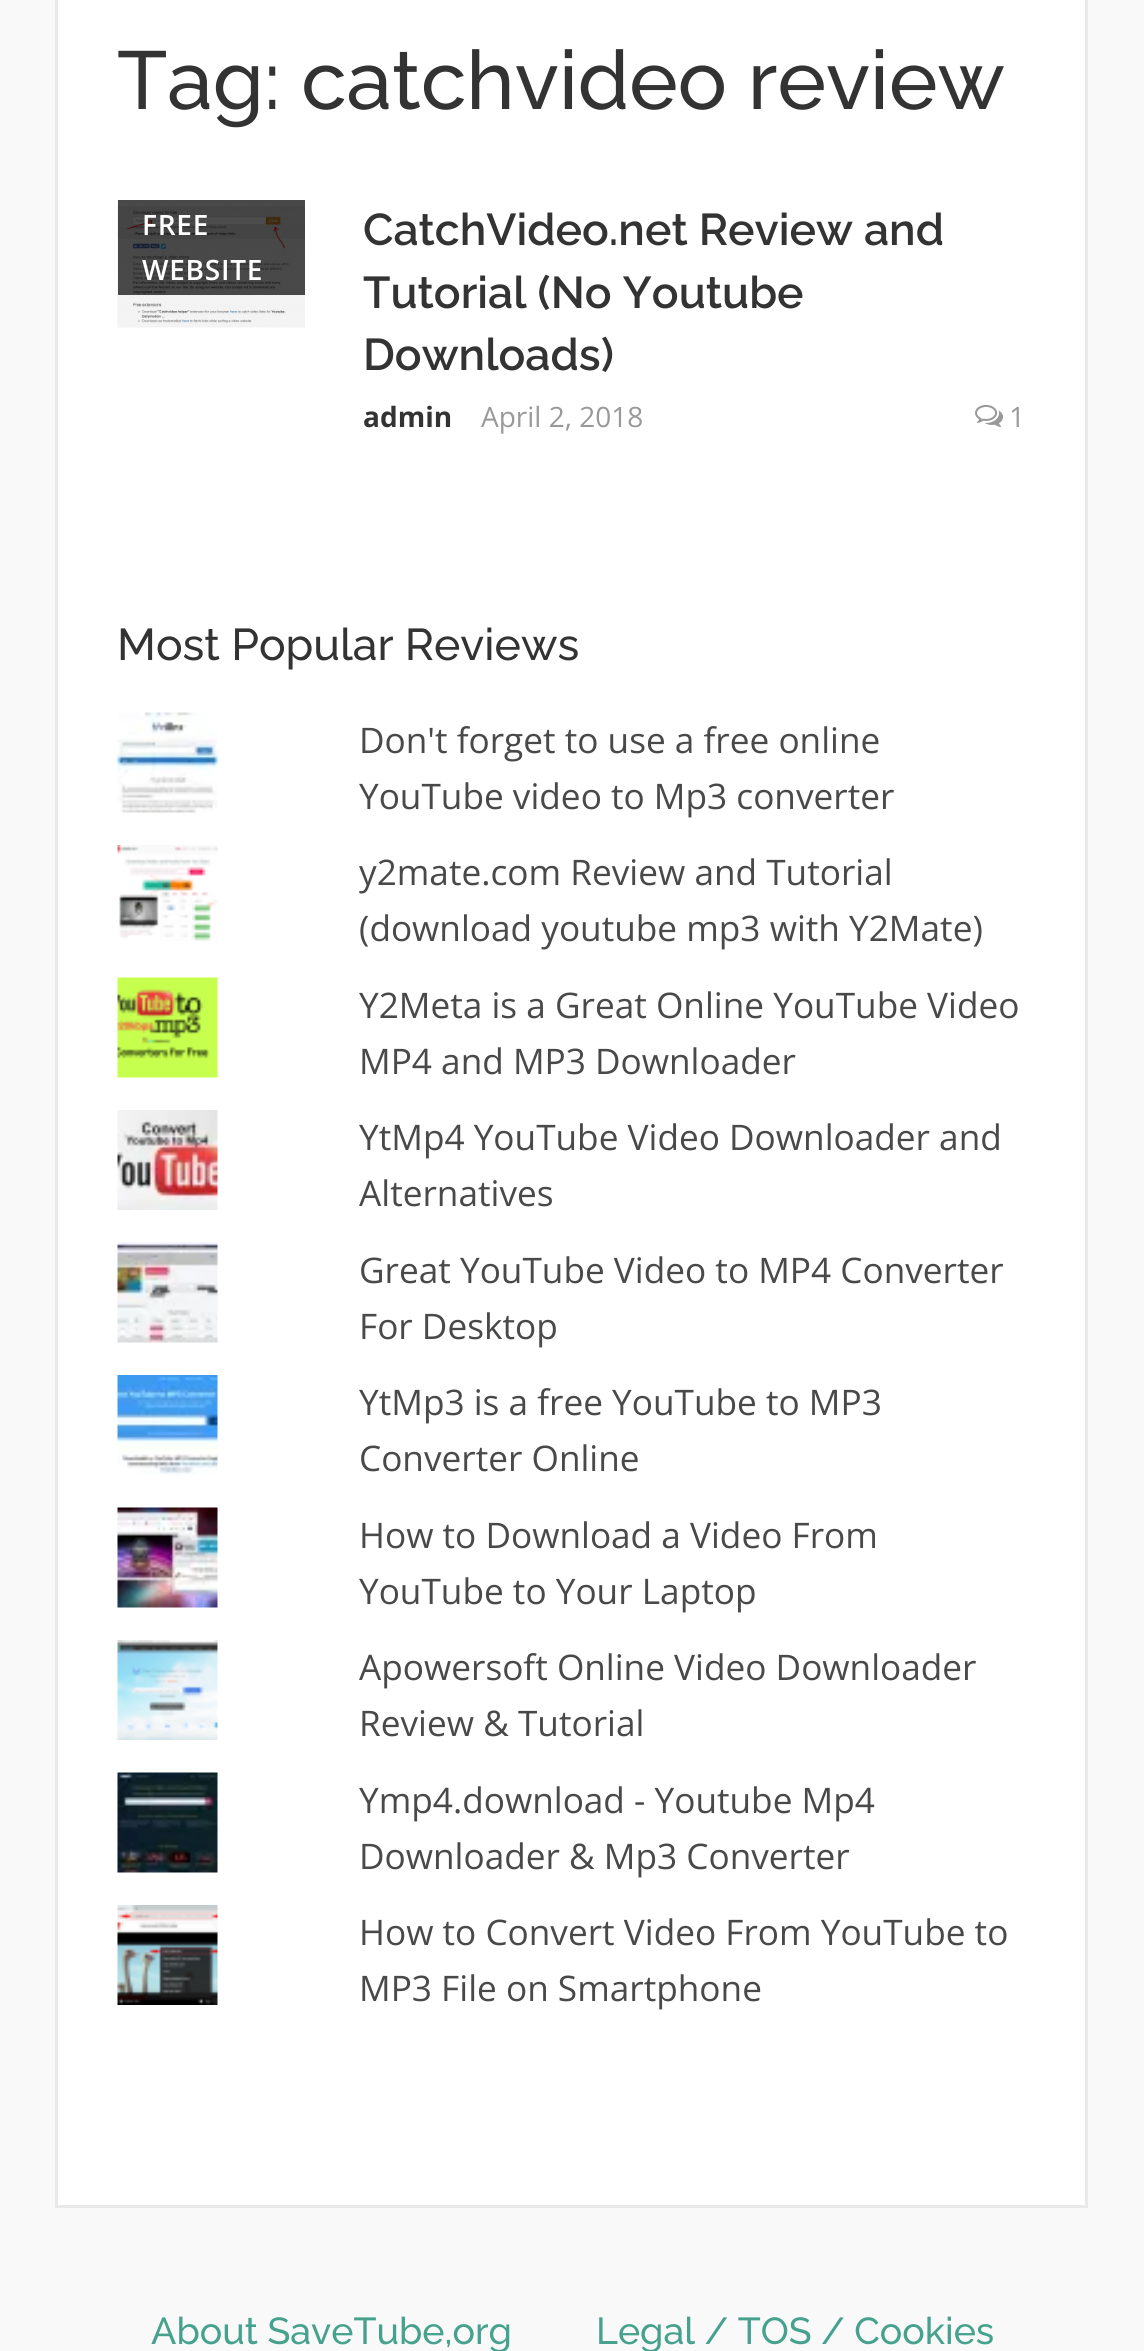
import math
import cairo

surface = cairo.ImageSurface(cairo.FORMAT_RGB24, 1144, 2351)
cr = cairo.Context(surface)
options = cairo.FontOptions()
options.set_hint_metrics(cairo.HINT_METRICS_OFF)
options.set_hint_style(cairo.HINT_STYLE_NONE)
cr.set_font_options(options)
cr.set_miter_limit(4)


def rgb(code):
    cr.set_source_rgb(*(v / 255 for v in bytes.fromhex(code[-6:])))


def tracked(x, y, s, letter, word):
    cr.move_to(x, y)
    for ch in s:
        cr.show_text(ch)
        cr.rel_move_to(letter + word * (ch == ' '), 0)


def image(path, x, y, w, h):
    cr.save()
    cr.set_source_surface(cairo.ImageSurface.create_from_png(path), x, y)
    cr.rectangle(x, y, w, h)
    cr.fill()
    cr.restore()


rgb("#f9f9f9")
cr.paint()
rgb("#ffffff")
cr.rectangle(56.5, -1.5, 1030, 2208)
cr.fill_preserve()
rgb("#e9e9e9")
cr.set_line_width(3)
cr.stroke()
image("img/1.png", 117, 200, 188, 128)
cr.set_source_rgba(0, 0, 0, 0.7)
cr.rectangle(118, 200, 187, 95)
cr.fill()
image("img/2.png", 975, 404, 29, 23)
image("img/3.png", 117, 712, 101, 101)
image("img/4.png", 117, 845, 101, 96)
image("img/5.png", 117, 977, 101, 101)
image("img/6.png", 117, 1110, 101, 100)
image("img/7.png", 117, 1242, 101, 101)
image("img/8.png", 117, 1375, 101, 100)
image("img/9.png", 117, 1507, 101, 101)
image("img/10.png", 117, 1640, 101, 100)
image("img/11.png", 117, 1772, 101, 101)
image("img/12.png", 117, 1905, 101, 100)
cr.select_font_face("Raleway Medium")
cr.set_font_size(82)
rgb("#333333")
cr.move_to(117, 109)
cr.show_text("Tag: catchvideo review")
cr.select_font_face("Open Sans SemiBold")
cr.set_font_size(28)
rgb("#ffffff")
tracked(142, 235, "FREE", 0.75, 0)
tracked(142, 280, "WEBSITE", 0.75, 0)
cr.select_font_face("Raleway SemiBold")
cr.set_font_size(44.5)
rgb("#333333")
for x, y, s in [
    (363, 245, "CatchVideo.net Review and"),
    (363, 308, "Tutorial (No Youtube"),
    (363, 370, "Downloads)"),
]:
    cr.move_to(x, y)
    cr.show_text(s)
cr.select_font_face("Open Sans", cairo.FONT_SLANT_NORMAL, cairo.FONT_WEIGHT_BOLD)
cr.set_font_size(28)
cr.move_to(363, 427)
cr.show_text("admin")
cr.select_font_face("Open Sans")
rgb("#999999")
cr.move_to(481, 427)
cr.show_text("April 2, 2018")
cr.move_to(1009, 427)
cr.show_text("1")
cr.select_font_face("Raleway Medium")
cr.set_font_size(44.5)
rgb("#333333")
cr.move_to(117, 660)
cr.show_text("Most Popular Reviews")
cr.select_font_face("Open Sans")
cr.set_font_size(35.2)
rgb("#494949")
for x, y, s in [
    (359, 753, "Don't forget to use a free online"),
    (359, 809, "YouTube video to Mp3 converter"),
    (359, 885, "y2mate.com Review and Tutorial"),
    (359, 941, "(download youtube mp3 with Y2Mate)"),
    (359, 1018, "Y2Meta is a Great Online YouTube Video"),
    (359, 1074, "MP4 and MP3 Downloader"),
    (359, 1150, "YtMp4 YouTube Video Downloader and"),
    (359, 1206, "Alternatives"),
    (359, 1283, "Great YouTube Video to MP4 Converter"),
    (359, 1339, "For Desktop"),
    (359, 1415, "YtMp3 is a free YouTube to MP3"),
    (359, 1471, "Converter Online"),
    (359, 1548, "How to Download a Video From"),
    (359, 1604, "YouTube to Your Laptop"),
    (359, 1680, "Apowersoft Online Video Downloader"),
    (359, 1736, "Review & Tutorial"),
    (359, 1813, "Ymp4.download - Youtube Mp4"),
    (359, 1869, "Downloader & Mp3 Converter"),
    (359, 1945, "How to Convert Video From YouTube to"),
    (359, 2001, "MP3 File on Smartphone"),
]:
    cr.move_to(x, y)
    cr.show_text(s)
cr.select_font_face("Raleway Medium")
cr.set_font_size(37.5)
rgb("#46a28d")
cr.move_to(151, 2344)
cr.show_text("About SaveTube,org")
cr.move_to(596, 2344)
cr.show_text("Legal / TOS / Cookies")
surface.write_to_png("page.png")
